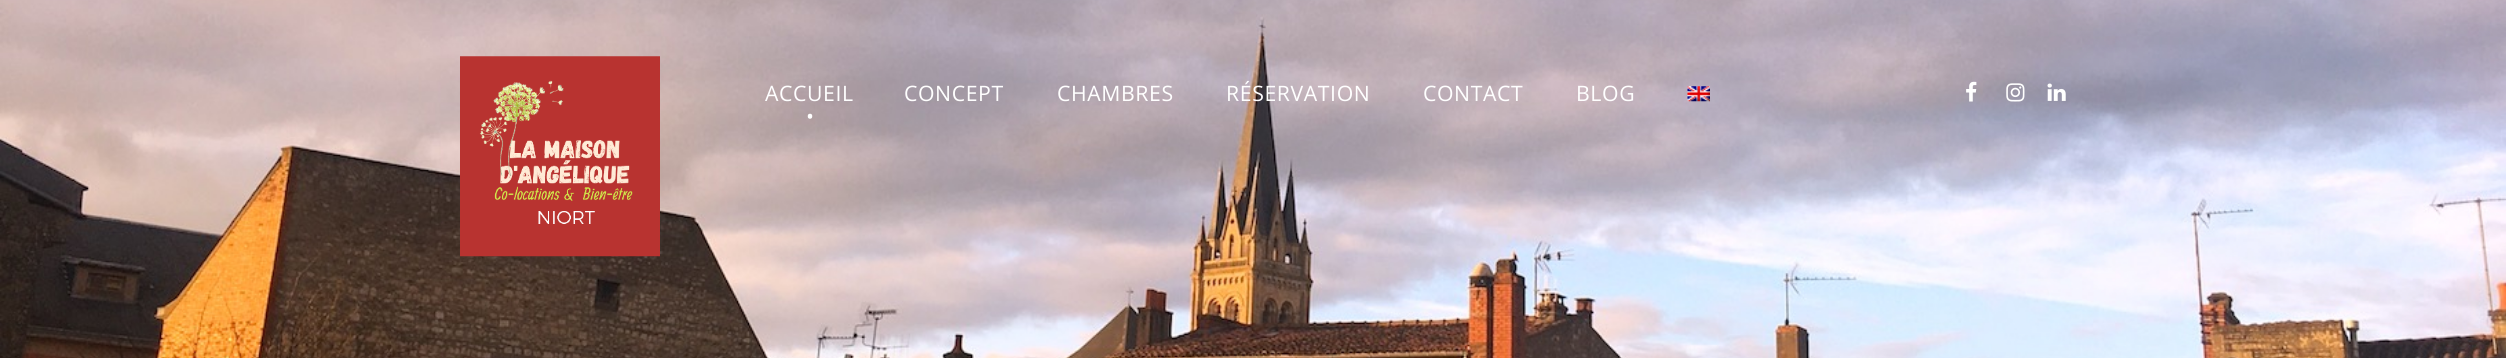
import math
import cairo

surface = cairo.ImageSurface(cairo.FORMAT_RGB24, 2506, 358)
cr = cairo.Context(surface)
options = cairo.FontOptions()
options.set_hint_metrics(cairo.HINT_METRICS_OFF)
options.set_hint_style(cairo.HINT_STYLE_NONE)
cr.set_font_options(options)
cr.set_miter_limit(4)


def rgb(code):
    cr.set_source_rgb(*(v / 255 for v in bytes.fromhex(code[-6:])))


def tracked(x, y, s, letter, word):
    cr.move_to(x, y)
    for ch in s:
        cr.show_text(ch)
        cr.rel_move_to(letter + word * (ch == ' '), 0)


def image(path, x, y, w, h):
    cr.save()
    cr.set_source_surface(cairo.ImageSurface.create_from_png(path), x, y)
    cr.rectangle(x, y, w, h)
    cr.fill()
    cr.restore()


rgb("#ffffff")
cr.paint()
image("img/1.png", 0, 0, 2506, 358)
image("img/2.png", 460, 56, 200, 201)
image("img/3.png", 1687, 86, 23, 16)
image("img/4.png", 1966, 81, 11, 21)
image("img/5.png", 2006, 83, 19, 19)
image("img/6.png", 2047, 83, 19, 18)
cr.select_font_face("Open Sans")
cr.set_font_size(21.25)
rgb("#ffffff")
for x, y, s in [
    (765, 101, "ACCUEIL"),
    (904, 101, "CONCEPT"),
    (1057, 101, "CHAMBRES"),
    (1226, 101, "RÉSERVATION"),
    (1423, 101, "CONTACT"),
    (1576, 101, "BLOG"),
]:
    tracked(x, y, s, 0.6, 0)
cr.move_to(806, 124)
cr.show_text("•")
surface.write_to_png("page.png")
